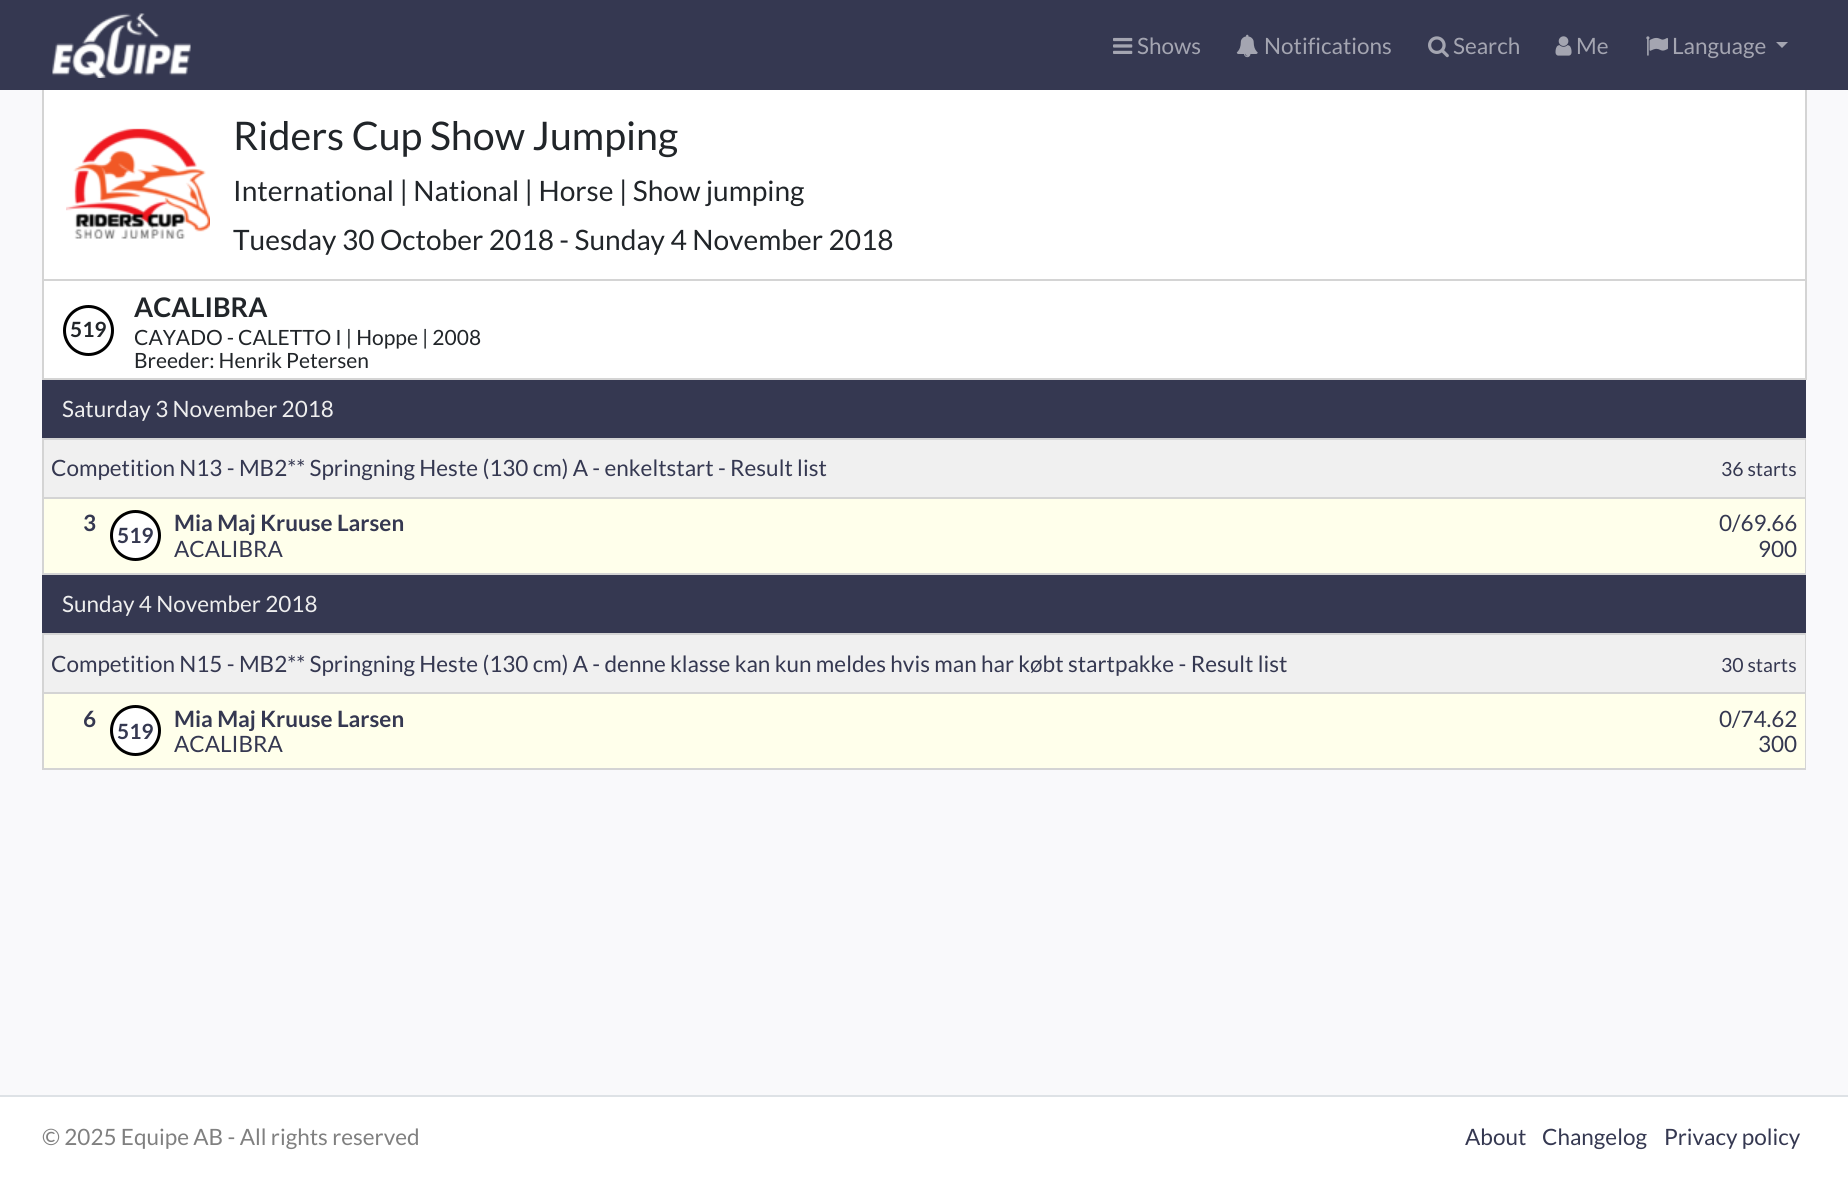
import math
import cairo

surface = cairo.ImageSurface(cairo.FORMAT_RGB24, 1848, 1177)
cr = cairo.Context(surface)
options = cairo.FontOptions()
options.set_hint_metrics(cairo.HINT_METRICS_OFF)
options.set_hint_style(cairo.HINT_STYLE_NONE)
cr.set_font_options(options)
cr.set_miter_limit(4)


def rgb(code):
    cr.set_source_rgb(*(v / 255 for v in bytes.fromhex(code[-6:])))


def image(path, x, y, w, h):
    cr.save()
    cr.set_source_surface(cairo.ImageSurface.create_from_png(path), x, y)
    cr.rectangle(x, y, w, h)
    cr.fill()
    cr.restore()


rgb("#f9f9fb")
cr.paint()
rgb("#353851")
cr.rectangle(0, 0, 1848, 90)
cr.fill()
image("img/1.png", 52, 13, 139, 65)
image("img/2.png", 1113, 37, 20, 17)
image("img/3.png", 1236, 34, 22, 24)
image("img/4.png", 1428, 36, 21, 22)
image("img/5.png", 1555, 36, 17, 20)
image("img/6.png", 1646, 36, 22, 20)
rgb("#a4a5b1")
cr.new_path()
cr.move_to(1776, 42)
cr.line_to(1788, 42)
cr.line_to(1782, 48)
cr.close_path()
cr.fill()
for x, y, w, h, color in [
    (44, 90, 1761, 189, "#ffffff"),
    (1805, 90, 2, 189, "#d4d4d4"),
    (42, 90, 2, 189, "#d4d4d4"),
]:
    rgb(color)
    cr.rectangle(x, y, w, h)
    cr.fill()
image("img/7.png", 66, 128, 144, 111)
for x, y, w, h, color in [
    (44, 281, 1761, 97, "#ffffff"),
    (42, 279, 1764, 2, "#d4d4d4"),
    (1805, 279, 2, 101, "#d4d4d4"),
    (42, 279, 2, 101, "#d4d4d4"),
    (44, 378, 1761, 2, "#d4d4d4"),
]:
    rgb(color)
    cr.rectangle(x, y, w, h)
    cr.fill()
cr.arc(88.5, 330.5, 24, 0, 2 * math.pi)
rgb("#000000")
cr.set_line_width(3)
cr.stroke()
rgb("#353851")
cr.rectangle(42, 380, 1764, 58)
cr.fill()
cr.rectangle(43, 439, 1762, 135)
rgb("#d4d4d4")
cr.set_line_width(2)
cr.stroke()
for x, y, w, h, color in [
    (44, 440, 1761, 57, "#f0f0f0"),
    (44, 499, 1761, 74, "#ffffeb"),
    (44, 497, 1761, 2, "#d4d4d4"),
]:
    rgb(color)
    cr.rectangle(x, y, w, h)
    cr.fill()
rgb("#ffffff")
cr.arc(135.5, 535.5, 24, 0, 2 * math.pi)
cr.fill_preserve()
rgb("#000000")
cr.set_line_width(3)
cr.stroke()
rgb("#353851")
cr.rectangle(42, 575, 1764, 58)
cr.fill()
cr.rectangle(43, 634, 1762, 135)
rgb("#d4d4d4")
cr.set_line_width(2)
cr.stroke()
for x, y, w, h, color in [
    (44, 635, 1761, 57, "#f0f0f0"),
    (44, 694, 1761, 74, "#ffffeb"),
    (44, 692, 1761, 2, "#d4d4d4"),
]:
    rgb(color)
    cr.rectangle(x, y, w, h)
    cr.fill()
rgb("#ffffff")
cr.arc(135.5, 730.5, 24, 0, 2 * math.pi)
cr.fill_preserve()
rgb("#000000")
cr.set_line_width(3)
cr.stroke()
rgb("#ffffff")
cr.rectangle(0, 1097, 1848, 80)
cr.fill()
rgb("#dee2e6")
cr.rectangle(0, 1095, 1848, 2)
cr.fill()
cr.select_font_face("Lato")
cr.set_font_size(22.5)
rgb("#a4a5b1")
for x, y, s in [
    (1137, 54, "Shows"),
    (1264, 54, "Notifications"),
    (1453, 54, "Search"),
    (1576, 54, "Me"),
    (1672, 54, "Language"),
]:
    cr.move_to(x, y)
    cr.show_text(s)
cr.set_font_size(39.4)
rgb("#212529")
cr.move_to(233, 150)
cr.show_text("Riders Cup Show Jumping")
cr.set_font_size(28.1)
cr.move_to(233, 201)
cr.show_text("International | National | Horse | Show jumping")
cr.move_to(233, 250)
cr.show_text("Tuesday 30 October 2018 - Sunday 4 November 2018")
cr.select_font_face("Lato", cairo.FONT_SLANT_NORMAL, cairo.FONT_WEIGHT_BOLD)
cr.set_font_size(21)
cr.move_to(70, 337)
cr.show_text("519")
cr.set_font_size(27)
cr.move_to(134, 317)
cr.show_text("ACALIBRA")
cr.select_font_face("Lato")
cr.set_font_size(21)
cr.move_to(134, 345)
cr.show_text("CAYADO - CALETTO I | Hoppe | 2008")
cr.move_to(134, 368)
cr.show_text("Breeder: Henrik Petersen")
cr.set_font_size(22.5)
rgb("#eeeeee")
cr.move_to(62, 417)
cr.show_text("Saturday 3 November 2018")
rgb("#353851")
cr.move_to(51, 476)
cr.show_text("Competition N13 - MB2** Springning Heste (130 cm) A - enkeltstart - Result list")
cr.set_font_size(19.5)
cr.move_to(1721, 476)
cr.show_text("36 starts")
cr.select_font_face("Lato", cairo.FONT_SLANT_NORMAL, cairo.FONT_WEIGHT_BOLD)
cr.set_font_size(22.5)
cr.move_to(83, 531)
cr.show_text("3")
cr.set_font_size(21)
cr.move_to(117, 543)
cr.show_text("519")
cr.set_font_size(22.5)
cr.move_to(174, 531)
cr.show_text("Mia Maj Kruuse Larsen")
cr.select_font_face("Lato")
for x, y, s in [
    (174, 557, "ACALIBRA"),
    (1719, 531, "0/69.66"),
    (1758, 557, "900"),
]:
    cr.move_to(x, y)
    cr.show_text(s)
rgb("#eeeeee")
cr.move_to(62, 612)
cr.show_text("Sunday 4 November 2018")
rgb("#353851")
cr.move_to(51, 672)
cr.show_text("Competition N15 - MB2** Springning Heste (130 cm) A - denne klasse kan kun meldes hvis man har købt startpakke - Result list")
cr.set_font_size(19.5)
cr.move_to(1721, 672)
cr.show_text("30 starts")
cr.select_font_face("Lato", cairo.FONT_SLANT_NORMAL, cairo.FONT_WEIGHT_BOLD)
cr.set_font_size(22.5)
cr.move_to(83, 727)
cr.show_text("6")
cr.set_font_size(21)
cr.move_to(117, 739)
cr.show_text("519")
cr.set_font_size(22.5)
cr.move_to(174, 727)
cr.show_text("Mia Maj Kruuse Larsen")
cr.select_font_face("Lato")
for x, y, s in [
    (174, 752, "ACALIBRA"),
    (1719, 727, "0/74.62"),
    (1758, 752, "300"),
]:
    cr.move_to(x, y)
    cr.show_text(s)
rgb("#808080")
cr.move_to(42, 1145)
cr.show_text("© 2025 Equipe AB - All rights reserved")
rgb("#353851")
for x, y, s in [
    (1465, 1145, "About"),
    (1542, 1145, "Changelog"),
    (1664, 1145, "Privacy policy"),
]:
    cr.move_to(x, y)
    cr.show_text(s)
surface.write_to_png("page.png")
